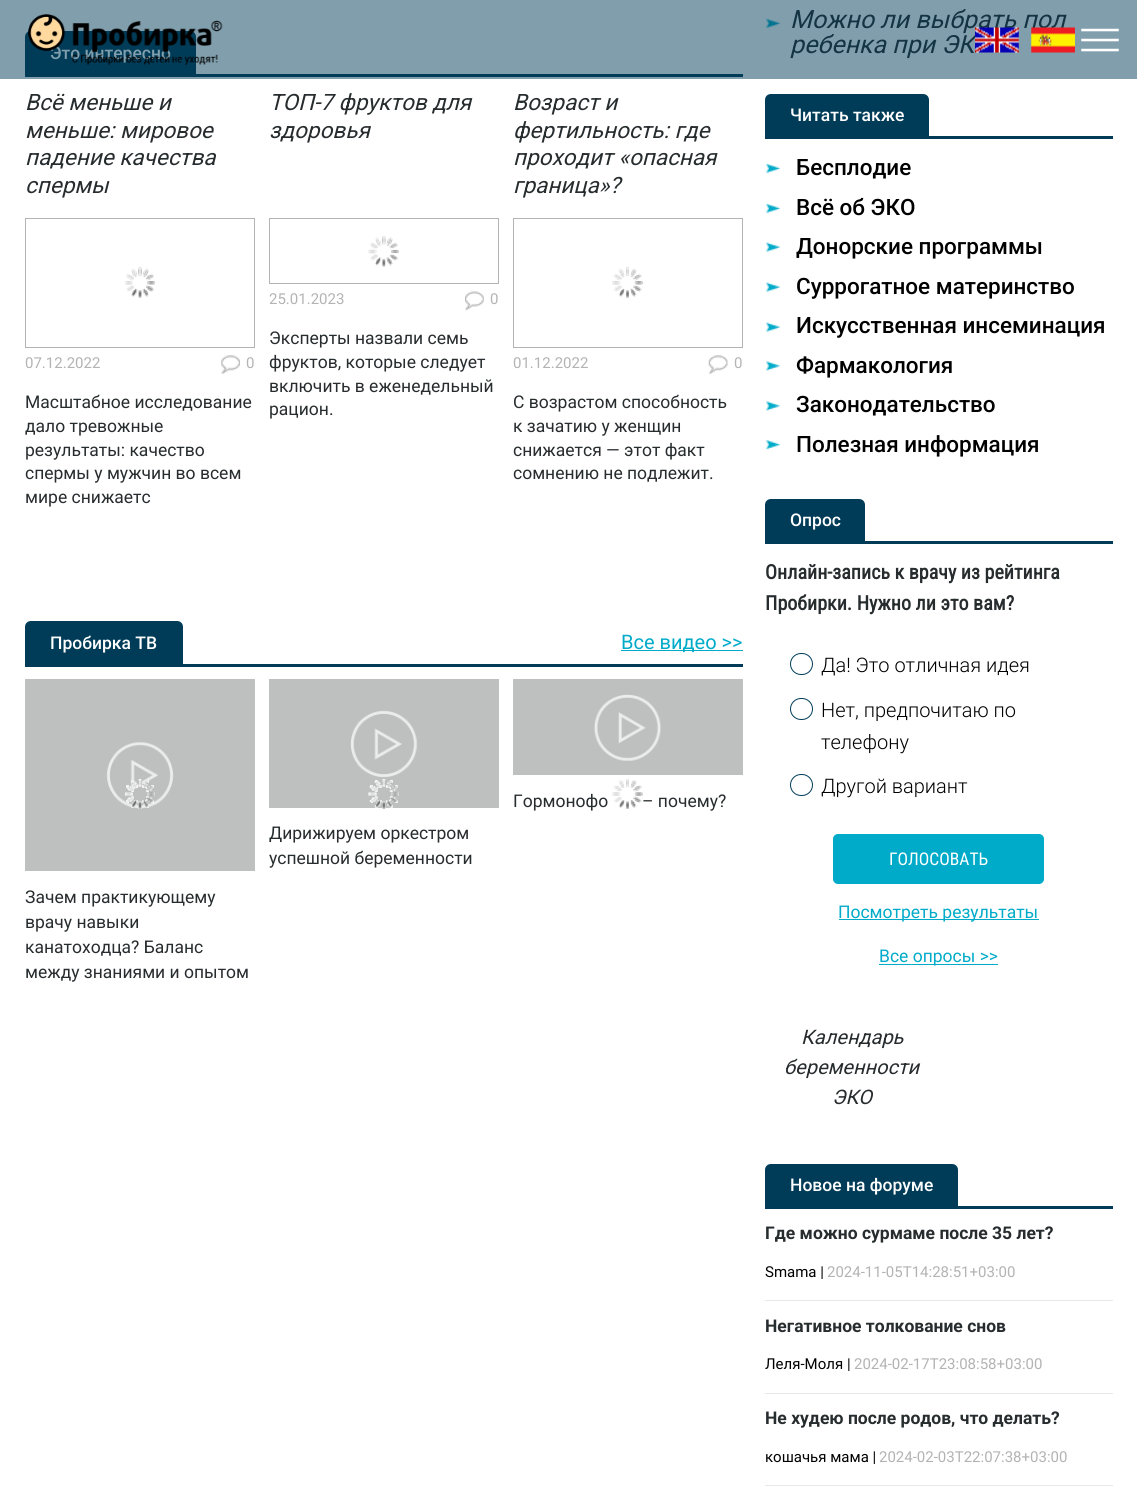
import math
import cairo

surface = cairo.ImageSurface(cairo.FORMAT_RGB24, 1137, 1501)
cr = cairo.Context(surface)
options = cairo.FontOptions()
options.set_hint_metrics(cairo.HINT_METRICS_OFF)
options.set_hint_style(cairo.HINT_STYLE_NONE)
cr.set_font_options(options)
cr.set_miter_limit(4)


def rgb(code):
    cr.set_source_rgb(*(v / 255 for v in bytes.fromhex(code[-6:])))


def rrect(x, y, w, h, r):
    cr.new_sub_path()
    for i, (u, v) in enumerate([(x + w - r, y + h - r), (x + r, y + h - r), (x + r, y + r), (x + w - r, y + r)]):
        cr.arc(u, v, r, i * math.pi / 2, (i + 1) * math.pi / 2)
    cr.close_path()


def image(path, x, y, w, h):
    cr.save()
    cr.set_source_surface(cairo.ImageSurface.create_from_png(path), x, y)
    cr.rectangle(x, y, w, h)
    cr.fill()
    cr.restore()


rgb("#ffffff")
cr.paint()
rgb("#809eac")
cr.rectangle(0, 0, 1137, 79)
cr.fill()
rgb("#003c58")
cr.rectangle(25, 74, 718, 3)
cr.fill()
cr.new_path()
cr.move_to(31, 31)
cr.line_to(190, 31)
cr.curve_to(193.5, 31, 196, 33.5, 196, 37)
cr.line_to(196, 74)
cr.line_to(25, 74)
cr.line_to(25, 37)
cr.curve_to(25, 33.5, 27.5, 31, 31, 31)
cr.close_path()
cr.fill()
cr.rectangle(25.5, 218.5, 229, 129)
rgb("#b3b3b3")
cr.set_line_width(1)
cr.stroke()
image("img/1.png", 125, 267, 30, 31)
image("img/2.png", 125, 267, 29, 29)
image("img/4.png", 125, 268, 30, 27)
image("img/5.png", 126, 268, 29, 29)
image("img/3.png", 129, 267, 26, 31)
image("img/6.png", 221, 355, 19, 19)
cr.rectangle(269.5, 218.5, 229, 65)
cr.stroke()
image("img/10.png", 368, 237, 31, 30)
image("img/7.png", 368, 236, 30, 31)
image("img/8.png", 369, 236, 30, 25)
image("img/11.png", 370, 237, 29, 29)
image("img/9.png", 375, 236, 24, 31)
image("img/12.png", 465, 291, 19, 20)
cr.rectangle(513.5, 218.5, 229, 129)
cr.stroke()
image("img/13.png", 612, 267, 31, 31)
image("img/14.png", 612, 267, 31, 30)
image("img/16.png", 612, 268, 31, 24)
image("img/17.png", 614, 268, 29, 29)
image("img/15.png", 617, 267, 25, 31)
image("img/18.png", 708, 355, 20, 19)
image("img/19.png", 766, 18, 15, 10)
rgb("#003c58")
cr.rectangle(765, 136, 348, 3)
cr.fill()
cr.new_path()
cr.move_to(771, 94)
cr.line_to(923, 94)
cr.curve_to(926.5, 94, 929, 96.5, 929, 100)
cr.line_to(929, 136)
cr.line_to(765, 136)
cr.line_to(765, 100)
cr.curve_to(765, 96.5, 767.5, 94, 771, 94)
cr.close_path()
cr.fill()
image("img/20.png", 766, 163, 15, 10)
image("img/20.png", 766, 203, 15, 10)
image("img/21.png", 766, 242, 15, 10)
image("img/21.png", 766, 282, 15, 10)
image("img/21.png", 766, 322, 15, 10)
image("img/22.png", 766, 361, 15, 10)
image("img/22.png", 766, 401, 15, 10)
image("img/23.png", 766, 440, 15, 10)
cr.rectangle(765, 541, 348, 3)
cr.fill()
cr.new_path()
cr.move_to(771, 499)
cr.line_to(859, 499)
cr.curve_to(862.5, 499, 865, 501.5, 865, 505)
cr.line_to(865, 541)
cr.line_to(765, 541)
cr.line_to(765, 505)
cr.curve_to(765, 501.5, 767.5, 499, 771, 499)
cr.close_path()
cr.fill()
rrect(790.5, 653.5, 22, 21, 10.5)
cr.stroke()
rrect(790.5, 698.5, 22, 21, 10.5)
cr.stroke()
rrect(790.5, 774.5, 22, 21, 10.5)
cr.stroke()
rgb("#00abc9")
rrect(833, 834, 211, 50, 5)
cr.fill()
for x, y, w, h, color in [
    (839, 919, 200, 1, "#00abc9"),
    (879, 964, 119, 1, "#00abc9"),
    (765, 1206, 348, 3, "#003c58"),
]:
    rgb(color)
    cr.rectangle(x, y, w, h)
    cr.fill()
cr.new_path()
cr.move_to(771, 1164)
cr.line_to(952, 1164)
cr.curve_to(955.5, 1164, 958, 1166.5, 958, 1170)
cr.line_to(958, 1206)
cr.line_to(765, 1206)
cr.line_to(765, 1170)
cr.curve_to(765, 1166.5, 767.5, 1164, 771, 1164)
cr.close_path()
cr.fill()
for x, y, w, h, color in [
    (765, 1300, 348, 1, "#e8e8e8"),
    (765, 1393, 348, 1, "#e8e8e8"),
    (765, 1485, 348, 1, "#e8e8e8"),
    (621, 650, 122, 1, "#00abc9"),
    (513, 679, 230, 96, "#bec0c0"),
]:
    rgb(color)
    cr.rectangle(x, y, w, h)
    cr.fill()
image("img/24.png", 594, 694, 67, 67)
image("img/25.png", 612, 779, 31, 30)
image("img/26.png", 612, 779, 30, 29)
image("img/27.png", 612, 779, 31, 28)
image("img/28.png", 612, 779, 31, 29)
image("img/29.png", 612, 779, 30, 30)
cr.rectangle(269, 679, 230, 129)
cr.fill()
image("img/30.png", 350, 710, 68, 68)
image("img/35.png", 368, 780, 31, 29)
image("img/31.png", 368, 779, 31, 29)
image("img/32.png", 368, 779, 31, 29)
image("img/33.png", 368, 779, 30, 29)
image("img/34.png", 368, 779, 31, 30)
cr.rectangle(25, 679, 230, 192)
cr.fill()
image("img/36.png", 106, 742, 68, 67)
image("img/41.png", 125, 780, 30, 29)
image("img/37.png", 125, 779, 30, 30)
image("img/38.png", 125, 779, 30, 30)
image("img/39.png", 125, 779, 30, 30)
image("img/40.png", 125, 779, 30, 30)
rgb("#003c58")
cr.rectangle(25, 664, 718, 3)
cr.fill()
cr.new_path()
cr.move_to(31, 621)
cr.line_to(177, 621)
cr.curve_to(180.5, 621, 183, 623.5, 183, 627)
cr.line_to(183, 664)
cr.line_to(25, 664)
cr.line_to(25, 627)
cr.curve_to(25, 623.5, 27.5, 621, 31, 621)
cr.close_path()
cr.fill()
image("img/43.png", 1081, 28, 38, 24)
cr.select_font_face("Roboto Medium")
cr.set_font_size(17.5)
rgb("#809eac")
cr.move_to(50, 59)
cr.show_text("Это интересно")
cr.select_font_face("Roboto", cairo.FONT_SLANT_ITALIC)
cr.set_font_size(22.5)
rgb("#272c2e")
for x, y, s in [
    (25, 110, "Всё меньше и"),
    (25, 138, "меньше: мировое"),
    (25, 165, "падение качества"),
    (25, 193, "спермы"),
]:
    cr.move_to(x, y)
    cr.show_text(s)
cr.select_font_face("Roboto")
cr.set_font_size(15)
rgb("#b3b3b3")
cr.move_to(25, 368)
cr.show_text("07.12.2022")
cr.move_to(246, 368)
cr.show_text("0")
cr.set_font_size(17.5)
rgb("#272c2e")
for x, y, s in [
    (25, 408, "Масштабное исследование"),
    (25, 432, "дало тревожные"),
    (25, 456, "результаты: качество"),
    (25, 479, "спермы у мужчин во всем"),
    (25, 503, "мире снижаетс"),
]:
    cr.move_to(x, y)
    cr.show_text(s)
cr.select_font_face("Roboto", cairo.FONT_SLANT_ITALIC)
cr.set_font_size(22.5)
cr.move_to(269, 110)
cr.show_text("ТОП-7 фруктов для")
cr.move_to(269, 138)
cr.show_text("здоровья")
cr.select_font_face("Roboto")
cr.set_font_size(15)
rgb("#b3b3b3")
cr.move_to(269, 304)
cr.show_text("25.01.2023")
cr.move_to(490, 304)
cr.show_text("0")
cr.set_font_size(17.5)
rgb("#272c2e")
for x, y, s in [
    (269, 344, "Эксперты назвали семь"),
    (269, 368, "фруктов, которые следует"),
    (269, 392, "включить в еженедельный"),
    (269, 415, "рацион."),
]:
    cr.move_to(x, y)
    cr.show_text(s)
cr.select_font_face("Roboto", cairo.FONT_SLANT_ITALIC)
cr.set_font_size(22.5)
for x, y, s in [
    (513, 110, "Возраст и"),
    (513, 138, "фертильность: где"),
    (513, 165, "проходит «опасная"),
    (513, 193, "граница»?"),
]:
    cr.move_to(x, y)
    cr.show_text(s)
cr.select_font_face("Roboto")
cr.set_font_size(15)
rgb("#b3b3b3")
cr.move_to(513, 368)
cr.show_text("01.12.2022")
cr.move_to(734, 368)
cr.show_text("0")
cr.set_font_size(17.5)
rgb("#272c2e")
for x, y, s in [
    (513, 408, "С возрастом способность"),
    (513, 432, "к зачатию у женщин"),
    (513, 456, "снижается — этот факт"),
    (513, 479, "сомнению не подлежит."),
]:
    cr.move_to(x, y)
    cr.show_text(s)
cr.select_font_face("Roboto", cairo.FONT_SLANT_ITALIC)
cr.set_font_size(25)
rgb("#143443")
cr.move_to(790, 28)
cr.show_text("Можно ли выбрать пол")
cr.move_to(790, 53)
cr.show_text("ребенка при ЭК")
cr.select_font_face("Roboto Medium")
cr.set_font_size(17.5)
rgb("#ffffff")
cr.move_to(790, 121)
cr.show_text("Читать также")
cr.set_font_size(22.5)
rgb("#000000")
for x, y, s in [
    (796, 175, "Бесплодие"),
    (796, 215, "Всё об ЭКО"),
    (796, 254, "Донорские программы"),
    (796, 294, "Суррогатное материнство"),
    (796, 333, "Искусственная инсеминация"),
    (796, 373, "Фармакология"),
    (796, 412, "Законодательство"),
    (796, 452, "Полезная информация"),
]:
    cr.move_to(x, y)
    cr.show_text(s)
cr.set_font_size(17.5)
rgb("#ffffff")
cr.move_to(790, 526)
cr.show_text("Опроc")
cr.select_font_face("Roboto Condensed", cairo.FONT_SLANT_NORMAL, cairo.FONT_WEIGHT_BOLD)
cr.set_font_size(20)
rgb("#272c2e")
cr.move_to(765, 579)
cr.show_text("Онлайн-запись к врачу из рейтинга")
cr.move_to(765, 610)
cr.show_text("Пробирки. Нужно ли это вам?")
cr.select_font_face("Roboto Light")
rgb("#000000")
for x, y, s in [
    (821, 672, "Да! Это отличная идея"),
    (821, 717, "Нет, предпочитаю по"),
    (821, 749, "телефону"),
    (821, 793, "Другой вариант"),
]:
    cr.move_to(x, y)
    cr.show_text(s)
cr.select_font_face("Roboto Condensed")
cr.set_font_size(17.5)
rgb("#ffffff")
cr.move_to(889, 865)
cr.show_text("ГОЛОСОВАТЬ")
cr.select_font_face("Roboto")
rgb("#00abc9")
cr.move_to(838, 918)
cr.show_text("Посмотреть результаты")
cr.move_to(879, 962)
cr.show_text("Все опросы >>")
cr.select_font_face("Roboto", cairo.FONT_SLANT_ITALIC)
cr.set_font_size(20)
rgb("#272c2e")
for x, y, s in [
    (801, 1044, "Календарь"),
    (784, 1074, "беременности"),
    (832, 1104, "ЭКО"),
]:
    cr.move_to(x, y)
    cr.show_text(s)
cr.select_font_face("Roboto Medium")
cr.set_font_size(17.5)
rgb("#ffffff")
cr.move_to(790, 1191)
cr.show_text("Новое на форуме")
cr.select_font_face("Roboto", cairo.FONT_SLANT_NORMAL, cairo.FONT_WEIGHT_BOLD)
rgb("#272c2e")
cr.move_to(765, 1239)
cr.show_text("Где можно сурмаме после 35 лет?")
cr.select_font_face("Roboto")
cr.set_font_size(15)
rgb("#000000")
cr.move_to(765, 1277)
cr.show_text("Smama |")
rgb("#b3b3b3")
cr.move_to(827, 1277)
cr.show_text("2024-11-05T14:28:51+03:00")
cr.select_font_face("Roboto", cairo.FONT_SLANT_NORMAL, cairo.FONT_WEIGHT_BOLD)
cr.set_font_size(17.5)
rgb("#272c2e")
cr.move_to(765, 1332)
cr.show_text("Негативное толкование снов")
cr.select_font_face("Roboto")
cr.set_font_size(15)
rgb("#000000")
cr.move_to(765, 1369)
cr.show_text("Леля-Моля |")
rgb("#b3b3b3")
cr.move_to(854, 1369)
cr.show_text("2024-02-17T23:08:58+03:00")
cr.select_font_face("Roboto", cairo.FONT_SLANT_NORMAL, cairo.FONT_WEIGHT_BOLD)
cr.set_font_size(17.5)
rgb("#272c2e")
cr.move_to(765, 1424)
cr.show_text("Не худею после родов, что делать?")
cr.select_font_face("Roboto")
cr.set_font_size(15)
rgb("#000000")
cr.move_to(765, 1462)
cr.show_text("кошачья мама |")
rgb("#b3b3b3")
cr.move_to(879, 1462)
cr.show_text("2024-02-03T22:07:38+03:00")
cr.set_font_size(20)
rgb("#00abc9")
cr.move_to(621, 649)
cr.show_text("Все видео >>")
cr.set_font_size(17.5)
rgb("#272c2e")
for x, y, s in [
    (513, 807, "Гормонофо"),
    (642, 807, "– почему?"),
    (269, 839, "Дирижируем оркестром"),
    (269, 864, "успешной беременности"),
    (25, 903, "Зачем практикующему"),
    (25, 928, "врачу навыки"),
    (25, 953, "канатоходца? Баланс"),
    (25, 978, "между знаниями и опытом"),
]:
    cr.move_to(x, y)
    cr.show_text(s)
cr.select_font_face("Roboto Medium")
rgb("#ffffff")
cr.move_to(50, 649)
cr.show_text("Пробирка ТВ")
image("img/42.png", 28, 14, 195, 51)
image("img/44.png", 975, 27, 44, 26)
image("img/45.png", 1031, 27, 44, 26)
surface.write_to_png("page.png")
